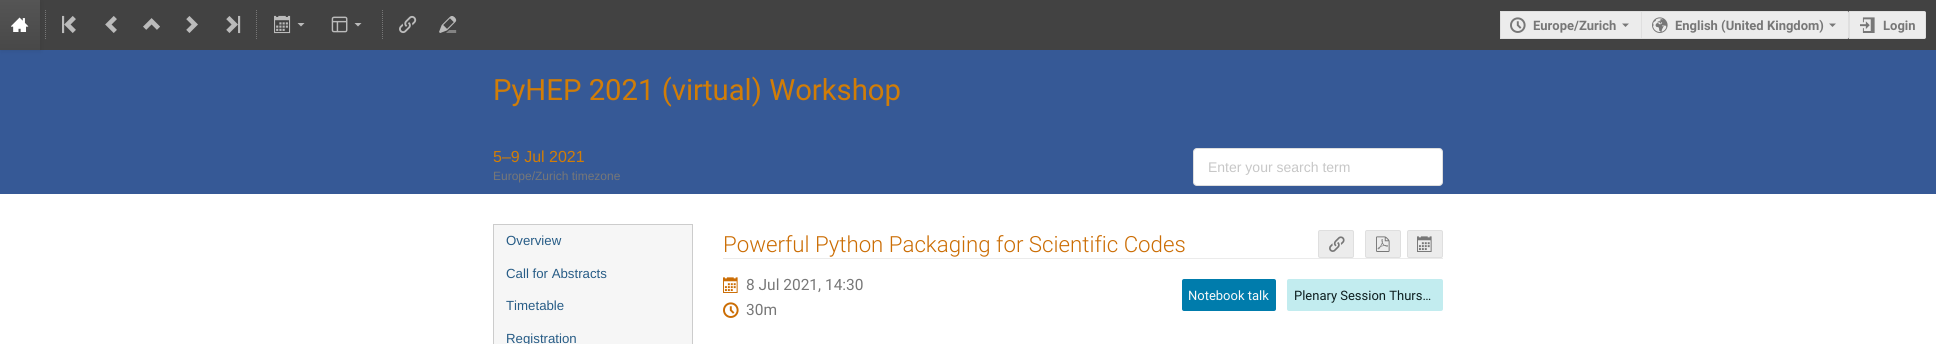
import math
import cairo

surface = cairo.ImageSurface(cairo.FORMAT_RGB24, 1936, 344)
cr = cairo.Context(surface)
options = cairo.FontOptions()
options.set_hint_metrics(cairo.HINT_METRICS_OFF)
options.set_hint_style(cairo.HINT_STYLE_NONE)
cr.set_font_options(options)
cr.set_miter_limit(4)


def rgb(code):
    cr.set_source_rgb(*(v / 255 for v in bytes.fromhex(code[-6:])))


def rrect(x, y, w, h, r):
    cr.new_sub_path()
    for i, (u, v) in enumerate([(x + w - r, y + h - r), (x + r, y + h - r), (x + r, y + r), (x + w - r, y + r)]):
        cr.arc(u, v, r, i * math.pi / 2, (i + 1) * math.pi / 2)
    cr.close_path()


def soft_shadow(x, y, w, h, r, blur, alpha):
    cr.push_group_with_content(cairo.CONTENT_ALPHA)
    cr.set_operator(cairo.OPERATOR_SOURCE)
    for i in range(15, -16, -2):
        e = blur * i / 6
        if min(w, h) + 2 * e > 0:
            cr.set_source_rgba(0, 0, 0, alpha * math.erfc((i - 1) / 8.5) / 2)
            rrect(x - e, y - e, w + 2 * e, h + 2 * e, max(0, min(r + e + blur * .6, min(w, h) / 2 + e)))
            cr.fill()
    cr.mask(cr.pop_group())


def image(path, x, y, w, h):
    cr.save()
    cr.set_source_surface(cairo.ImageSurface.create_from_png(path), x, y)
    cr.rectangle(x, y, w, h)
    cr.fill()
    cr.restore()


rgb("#ffffff")
cr.paint()
rgb("#424242")
cr.rectangle(40, 0, 1896, 50)
cr.fill()
rgb("#365996")
cr.rectangle(0, 50, 1936, 144)
cr.fill()
rgb("#141414")
soft_shadow(1, 1, 40, 50, 0, 2, 0.1)
gradient = cairo.LinearGradient(20, 0, 20, 50)
gradient.add_color_stop_rgba(0, 0.333, 0.333, 0.333, 1)
gradient.add_color_stop_rgba(1, 0.282, 0.282, 0.282, 1)
cr.set_source(gradient)
cr.rectangle(0, 0, 40, 50)
cr.fill()
image("img/1.png", 11, 17, 18, 15)
cr.new_path()
cr.move_to(45.5, 10)
cr.line_to(45.5, 40)
rgb("#777777")
cr.set_line_width(1)
cr.set_dash([1, 1])
cr.stroke()
image("img/2.png", 62, 15, 14, 19)
image("img/3.png", 105, 16, 12, 17)
image("img/4.png", 143, 18, 17, 12)
image("img/5.png", 186, 16, 12, 17)
image("img/6.png", 226, 15, 15, 19)
cr.new_path()
cr.move_to(256.5, 10)
cr.line_to(256.5, 40)
cr.stroke()
image("img/7.png", 274, 15, 17, 19)
rgb("#bbbbbb")
cr.new_path()
cr.move_to(297.5, 23)
cr.line_to(301, 26.5)
cr.line_to(304.5, 23)
cr.close_path()
cr.fill()
image("img/8.png", 331, 16, 17, 17)
cr.new_path()
cr.move_to(354.5, 23)
cr.line_to(358, 26.5)
cr.line_to(361.5, 23)
cr.close_path()
cr.fill()
cr.new_path()
cr.move_to(382.5, 10)
cr.line_to(382.5, 40)
rgb("#777777")
cr.stroke()
image("img/9.png", 399, 15, 18, 19)
image("img/10.png", 439, 16, 18, 17)
for x, y, w, h, color in [
    (1501, 12, 140, 26, "#ececec"),
    (1500, 11, 141, 1, "#dfdfdf"),
    (1500, 38, 141, 1, "#dfdfdf"),
    (1500, 11, 1, 28, "#dfdfdf"),
]:
    rgb(color)
    cr.rectangle(x, y, w, h)
    cr.fill()
image("img/11.png", 1510, 17, 16, 16)
rgb("#777777")
cr.new_path()
cr.move_to(1622, 23.5)
cr.line_to(1625.5, 27)
cr.line_to(1629, 23.5)
cr.close_path()
cr.fill()
rgb("#ececec")
cr.new_path()
cr.move_to(1641.5, 11.5)
cr.line_to(1847, 11.5)
cr.curve_to(1848, 11.5, 1848.5, 12, 1848.5, 13)
cr.line_to(1848.5, 37)
cr.curve_to(1848.5, 38, 1848, 38.5, 1847, 38.5)
cr.line_to(1641.5, 38.5)
cr.close_path()
cr.fill_preserve()
rgb("#dfdfdf")
cr.set_dash([])
cr.stroke()
image("img/12.png", 1652, 17, 16, 16)
rgb("#777777")
cr.new_path()
cr.move_to(1829, 23.5)
cr.line_to(1832.5, 27)
cr.line_to(1836, 23.5)
cr.close_path()
cr.fill()
rgb("#ececec")
cr.new_path()
cr.move_to(1849.5, 11.5)
cr.line_to(1924, 11.5)
cr.curve_to(1925, 11.5, 1925.5, 12, 1925.5, 13)
cr.line_to(1925.5, 37)
cr.curve_to(1925.5, 38, 1925, 38.5, 1924, 38.5)
cr.line_to(1849.5, 38.5)
cr.close_path()
cr.fill_preserve()
rgb("#dfdfdf")
cr.stroke()
image("img/13.png", 1860, 17, 15, 16)
rgb("#ffffff")
rrect(1193, 148, 250, 38, 4)
cr.fill()
rrect(1193.5, 148.5, 249, 37, 3.5)
cr.set_source_rgba(0.133, 0.141, 0.149, 0.15)
cr.stroke()
rgb("#f6f6f6")
cr.rectangle(493.5, 224.5, 199, 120)
cr.fill_preserve()
rgb("#cccccc")
cr.stroke()
rgb("#ebebeb")
cr.rectangle(723, 258, 720, 1)
cr.fill()
rgb("#ececec")
rrect(1318.5, 230.5, 35, 27, 1.5)
cr.fill_preserve()
rgb("#dfdfdf")
cr.stroke()
image("img/14.png", 1329, 236, 16, 16)
rgb("#ececec")
rrect(1365.5, 230.5, 35, 27, 1.5)
cr.fill_preserve()
rgb("#dfdfdf")
cr.stroke()
image("img/15.png", 1376, 236, 14, 16)
rgb("#ececec")
rrect(1407.5, 230.5, 35, 27, 1.5)
cr.fill_preserve()
rgb("#dfdfdf")
cr.stroke()
image("img/16.png", 1417, 236, 15, 16)
image("img/17.png", 723, 277, 15, 16)
image("img/18.png", 723, 302, 16, 16)
rgb("#007cac")
rrect(1182, 279, 94, 32, 2)
cr.fill()
rgb("#c2ecef")
rrect(1287, 279, 156, 32, 2)
cr.fill()
cr.select_font_face("Roboto", cairo.FONT_SLANT_NORMAL, cairo.FONT_WEIGHT_BOLD)
cr.set_font_size(13)
rgb("#777777")
for x, y, s in [
    (1533, 30, "Europe/Zurich"),
    (1675, 30, "English (United Kingdom)"),
    (1883, 30, "Login"),
]:
    cr.move_to(x, y)
    cr.show_text(s)
cr.select_font_face("Roboto")
cr.set_font_size(29.3)
rgb("#d17d07")
cr.move_to(493, 100)
cr.show_text("PyHEP 2021 (virtual) Workshop")
cr.select_font_face("Liberation Sans")
cr.set_font_size(16)
cr.move_to(493, 162)
cr.show_text("5–9 Jul 2021")
cr.set_font_size(12)
rgb("#777777")
cr.move_to(493, 180)
cr.show_text("Europe/Zurich timezone")
cr.select_font_face("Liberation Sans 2")
cr.set_font_size(14)
rgb("#c7c7c7")
cr.move_to(1208, 172)
cr.show_text("Enter your search term")
cr.set_font_size(13.25)
rgb("#275c86")
for x, y, s in [
    (506, 245, "Overview"),
    (506, 278, "Call for Abstracts"),
    (506, 310, "Timetable"),
    (506, 343, "Registration"),
]:
    cr.move_to(x, y)
    cr.show_text(s)
cr.select_font_face("Roboto Light")
cr.set_font_size(22.25)
rgb("#cb6d04")
cr.move_to(723, 252)
cr.show_text("Powerful Python Packaging for Scientific Codes")
cr.select_font_face("Roboto")
cr.set_font_size(15.5)
rgb("#777777")
cr.move_to(746, 290)
cr.show_text("8 Jul 2021, 14:30")
cr.move_to(746, 315)
cr.show_text("30m")
cr.set_font_size(13)
rgb("#f9f9f9")
cr.move_to(1188, 300)
cr.show_text("Notebook talk")
rgb("#0d1e1f")
cr.move_to(1294, 300)
cr.show_text("Plenary Session Thurs…")
surface.write_to_png("page.png")
